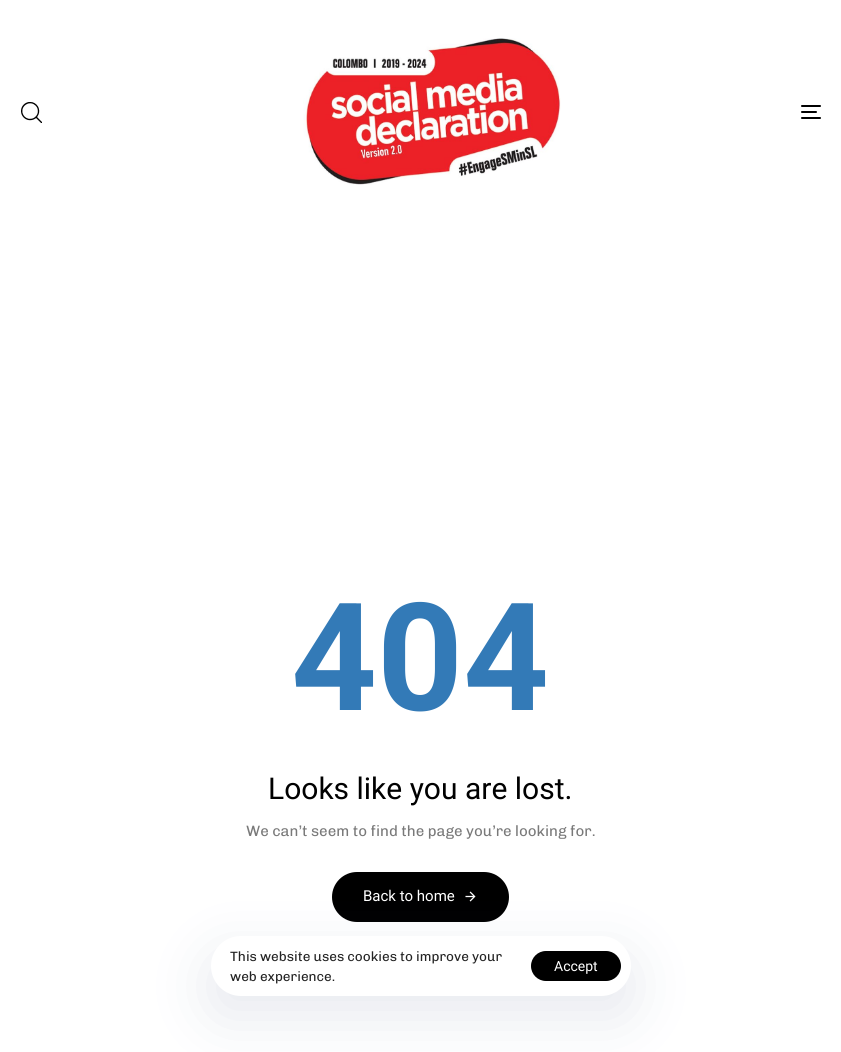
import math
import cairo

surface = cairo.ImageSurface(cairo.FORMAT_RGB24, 841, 1052)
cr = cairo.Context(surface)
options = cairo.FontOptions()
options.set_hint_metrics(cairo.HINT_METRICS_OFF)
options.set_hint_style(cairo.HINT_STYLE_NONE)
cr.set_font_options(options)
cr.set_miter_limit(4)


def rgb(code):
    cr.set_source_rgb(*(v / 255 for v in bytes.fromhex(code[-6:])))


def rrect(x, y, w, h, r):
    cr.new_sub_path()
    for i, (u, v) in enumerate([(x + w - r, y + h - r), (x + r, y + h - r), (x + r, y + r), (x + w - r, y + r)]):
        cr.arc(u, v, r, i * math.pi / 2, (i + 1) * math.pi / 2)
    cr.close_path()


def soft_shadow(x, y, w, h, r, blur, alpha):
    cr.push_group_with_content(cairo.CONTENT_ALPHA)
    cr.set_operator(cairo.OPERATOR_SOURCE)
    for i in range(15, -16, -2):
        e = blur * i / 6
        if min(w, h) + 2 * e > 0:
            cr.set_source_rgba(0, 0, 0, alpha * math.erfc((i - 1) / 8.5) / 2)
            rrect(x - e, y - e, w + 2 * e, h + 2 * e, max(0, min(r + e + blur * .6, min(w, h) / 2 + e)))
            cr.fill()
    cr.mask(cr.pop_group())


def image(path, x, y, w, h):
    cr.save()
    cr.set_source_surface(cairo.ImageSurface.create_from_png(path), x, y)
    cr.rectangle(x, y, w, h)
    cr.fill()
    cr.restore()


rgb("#ffffff")
cr.paint()
image("img/1.png", 21, 102, 21, 21)
image("img/2.png", 303, 38, 258, 147)
rgb("#000000")
rrect(801, 105, 20, 2, 1)
cr.fill()
rrect(801, 111, 16, 2, 1)
cr.fill()
rrect(801, 117, 20, 2, 1)
cr.fill()
rrect(332, 872, 177, 50, 25)
cr.fill()
image("img/3.png", 465, 891, 11, 11)
rgb("#5c6b95")
soft_shadow(211, 956, 420, 60, 30, 30, 0.15)
rgb("#ffffff")
rrect(211, 936, 420, 60, 30)
cr.fill()
rgb("#000000")
rrect(531, 951, 90, 30, 15)
cr.fill()
cr.select_font_face("Roboto", cairo.FONT_SLANT_NORMAL, cairo.FONT_WEIGHT_BOLD)
cr.set_font_size(150)
rgb("#337ab7")
cr.move_to(291, 710)
cr.show_text("404")
cr.select_font_face("Roboto")
cr.set_font_size(30)
rgb("#000000")
cr.move_to(268, 799)
cr.show_text("Looks like you are lost.")
cr.select_font_face("Chivo")
cr.set_font_size(15)
rgb("#797979")
cr.move_to(246, 836)
cr.show_text("We can’t seem to find the page you’re looking for.")
cr.select_font_face("Roboto")
rgb("#ffffff")
cr.move_to(363, 901)
cr.show_text("Back to home")
cr.select_font_face("Chivo")
cr.set_font_size(13.5)
rgb("#242424")
cr.move_to(230, 961)
cr.show_text("This website uses cookies to improve your")
cr.move_to(230, 981)
cr.show_text("web experience.")
cr.select_font_face("Roboto")
cr.set_font_size(14)
rgb("#ffffff")
cr.move_to(554, 971)
cr.show_text("Accept")
surface.write_to_png("page.png")
